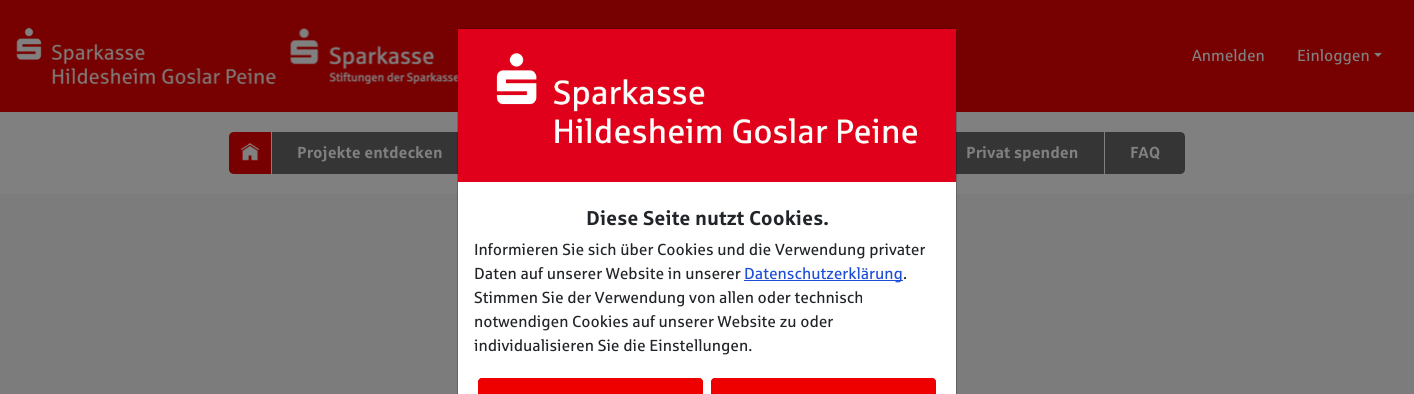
import math
import cairo

surface = cairo.ImageSurface(cairo.FORMAT_RGB24, 1414, 394)
cr = cairo.Context(surface)
options = cairo.FontOptions()
options.set_hint_metrics(cairo.HINT_METRICS_OFF)
options.set_hint_style(cairo.HINT_STYLE_NONE)
cr.set_font_options(options)
cr.set_miter_limit(4)


def rgb(code):
    cr.set_source_rgb(*(v / 255 for v in bytes.fromhex(code[-6:])))


def rrect(x, y, w, h, r):
    cr.new_sub_path()
    for i, (u, v) in enumerate([(x + w - r, y + h - r), (x + r, y + h - r), (x + r, y + r), (x + w - r, y + r)]):
        cr.arc(u, v, r, i * math.pi / 2, (i + 1) * math.pi / 2)
    cr.close_path()


def image(path, x, y, w, h):
    cr.save()
    cr.set_source_surface(cairo.ImageSurface.create_from_png(path), x, y)
    cr.rectangle(x, y, w, h)
    cr.fill()
    cr.restore()


rgb("#808080")
cr.paint()
rgb("#770000")
cr.rectangle(0, 0, 1414, 112)
cr.fill()
image("img/1.png", 16, 28, 442, 56)
rgb("#808080")
cr.new_path()
cr.move_to(1374, 53)
cr.line_to(1382, 53)
cr.line_to(1378, 57)
cr.close_path()
cr.fill()
rgb("#770000")
cr.new_path()
cr.move_to(234, 132)
cr.line_to(272, 132)
cr.line_to(272, 174)
cr.line_to(234, 174)
cr.curve_to(231, 174, 229, 172, 229, 169)
cr.line_to(229, 137)
cr.curve_to(229, 134, 231, 132, 234, 132)
cr.close_path()
cr.fill()
rgb("#808080")
cr.rectangle(271, 132, 1, 42)
cr.fill()
image("img/2.png", 240, 142, 20, 19)
rgb("#353535")
cr.rectangle(272, 132, 186, 42)
cr.fill()
cr.rectangle(956, 132, 148, 42)
cr.fill()
cr.new_path()
cr.move_to(1105, 132)
cr.line_to(1180, 132)
cr.curve_to(1183, 132, 1185, 134, 1185, 137)
cr.line_to(1185, 169)
cr.curve_to(1185, 172, 1183, 174, 1180, 174)
cr.line_to(1105, 174)
cr.close_path()
cr.fill()
rgb("#7c7c7c")
cr.rectangle(0, 194, 1414, 200)
cr.fill()
rgb("#ffffff")
cr.rectangle(458, 182, 498, 212)
cr.fill()
rrect(457.5, 28.5, 499, 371, 4.5)
cr.set_source_rgba(0, 0, 0, 0.2)
cr.set_line_width(1)
cr.stroke()
image("img/3.png", 458, 29, 498, 153)
rgb("#1d4ed8")
cr.rectangle(744, 280, 159, 1)
cr.fill()
rgb("#ee0000")
cr.new_path()
cr.move_to(482, 378)
cr.line_to(699, 378)
cr.curve_to(701, 378, 703, 380, 703, 382)
cr.line_to(703, 394)
cr.line_to(478, 394)
cr.line_to(478, 382)
cr.curve_to(478, 380, 480, 378, 482, 378)
cr.close_path()
cr.fill()
rrect(478.5, 378.5, 224, 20, 3.5)
cr.stroke()
cr.new_path()
cr.move_to(715, 378)
cr.line_to(932, 378)
cr.curve_to(934, 378, 936, 380, 936, 382)
cr.line_to(936, 394)
cr.line_to(711, 394)
cr.line_to(711, 382)
cr.curve_to(711, 380, 713, 378, 715, 378)
cr.close_path()
cr.fill()
rrect(711.5, 378.5, 224, 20, 3.5)
cr.stroke()
cr.select_font_face("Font")
cr.set_font_size(16)
rgb("#808080")
cr.move_to(1192, 61)
cr.show_text("Anmelden")
cr.move_to(1297, 61)
cr.show_text("Einloggen")
cr.select_font_face("Font", cairo.FONT_SLANT_NORMAL, cairo.FONT_WEIGHT_BOLD)
for x, y, s in [
    (297, 158, "Projekte entdecken"),
    (966, 158, "Privat spenden"),
    (1130, 158, "FAQ"),
]:
    cr.move_to(x, y)
    cr.show_text(s)
cr.set_font_size(20)
rgb("#212529")
cr.move_to(586, 225)
cr.show_text("Diese Seite nutzt Cookies.")
cr.select_font_face("Font")
cr.set_font_size(16)
cr.move_to(474, 255)
cr.show_text("Informieren Sie sich über Cookies und die Verwendung privater")
cr.move_to(474, 279)
cr.show_text("Daten auf unserer Website in unserer")
rgb("#1d4ed8")
cr.move_to(744, 279)
cr.show_text("Datenschutzerklärung")
rgb("#212529")
for x, y, s in [
    (903, 279, "."),
    (474, 303, "Stimmen Sie der Verwendung von allen oder technisch"),
    (474, 327, "notwendigen Cookies auf unserer Website zu oder"),
    (474, 351, "individualisieren Sie die Einstellungen."),
]:
    cr.move_to(x, y)
    cr.show_text(s)
surface.write_to_png("page.png")
